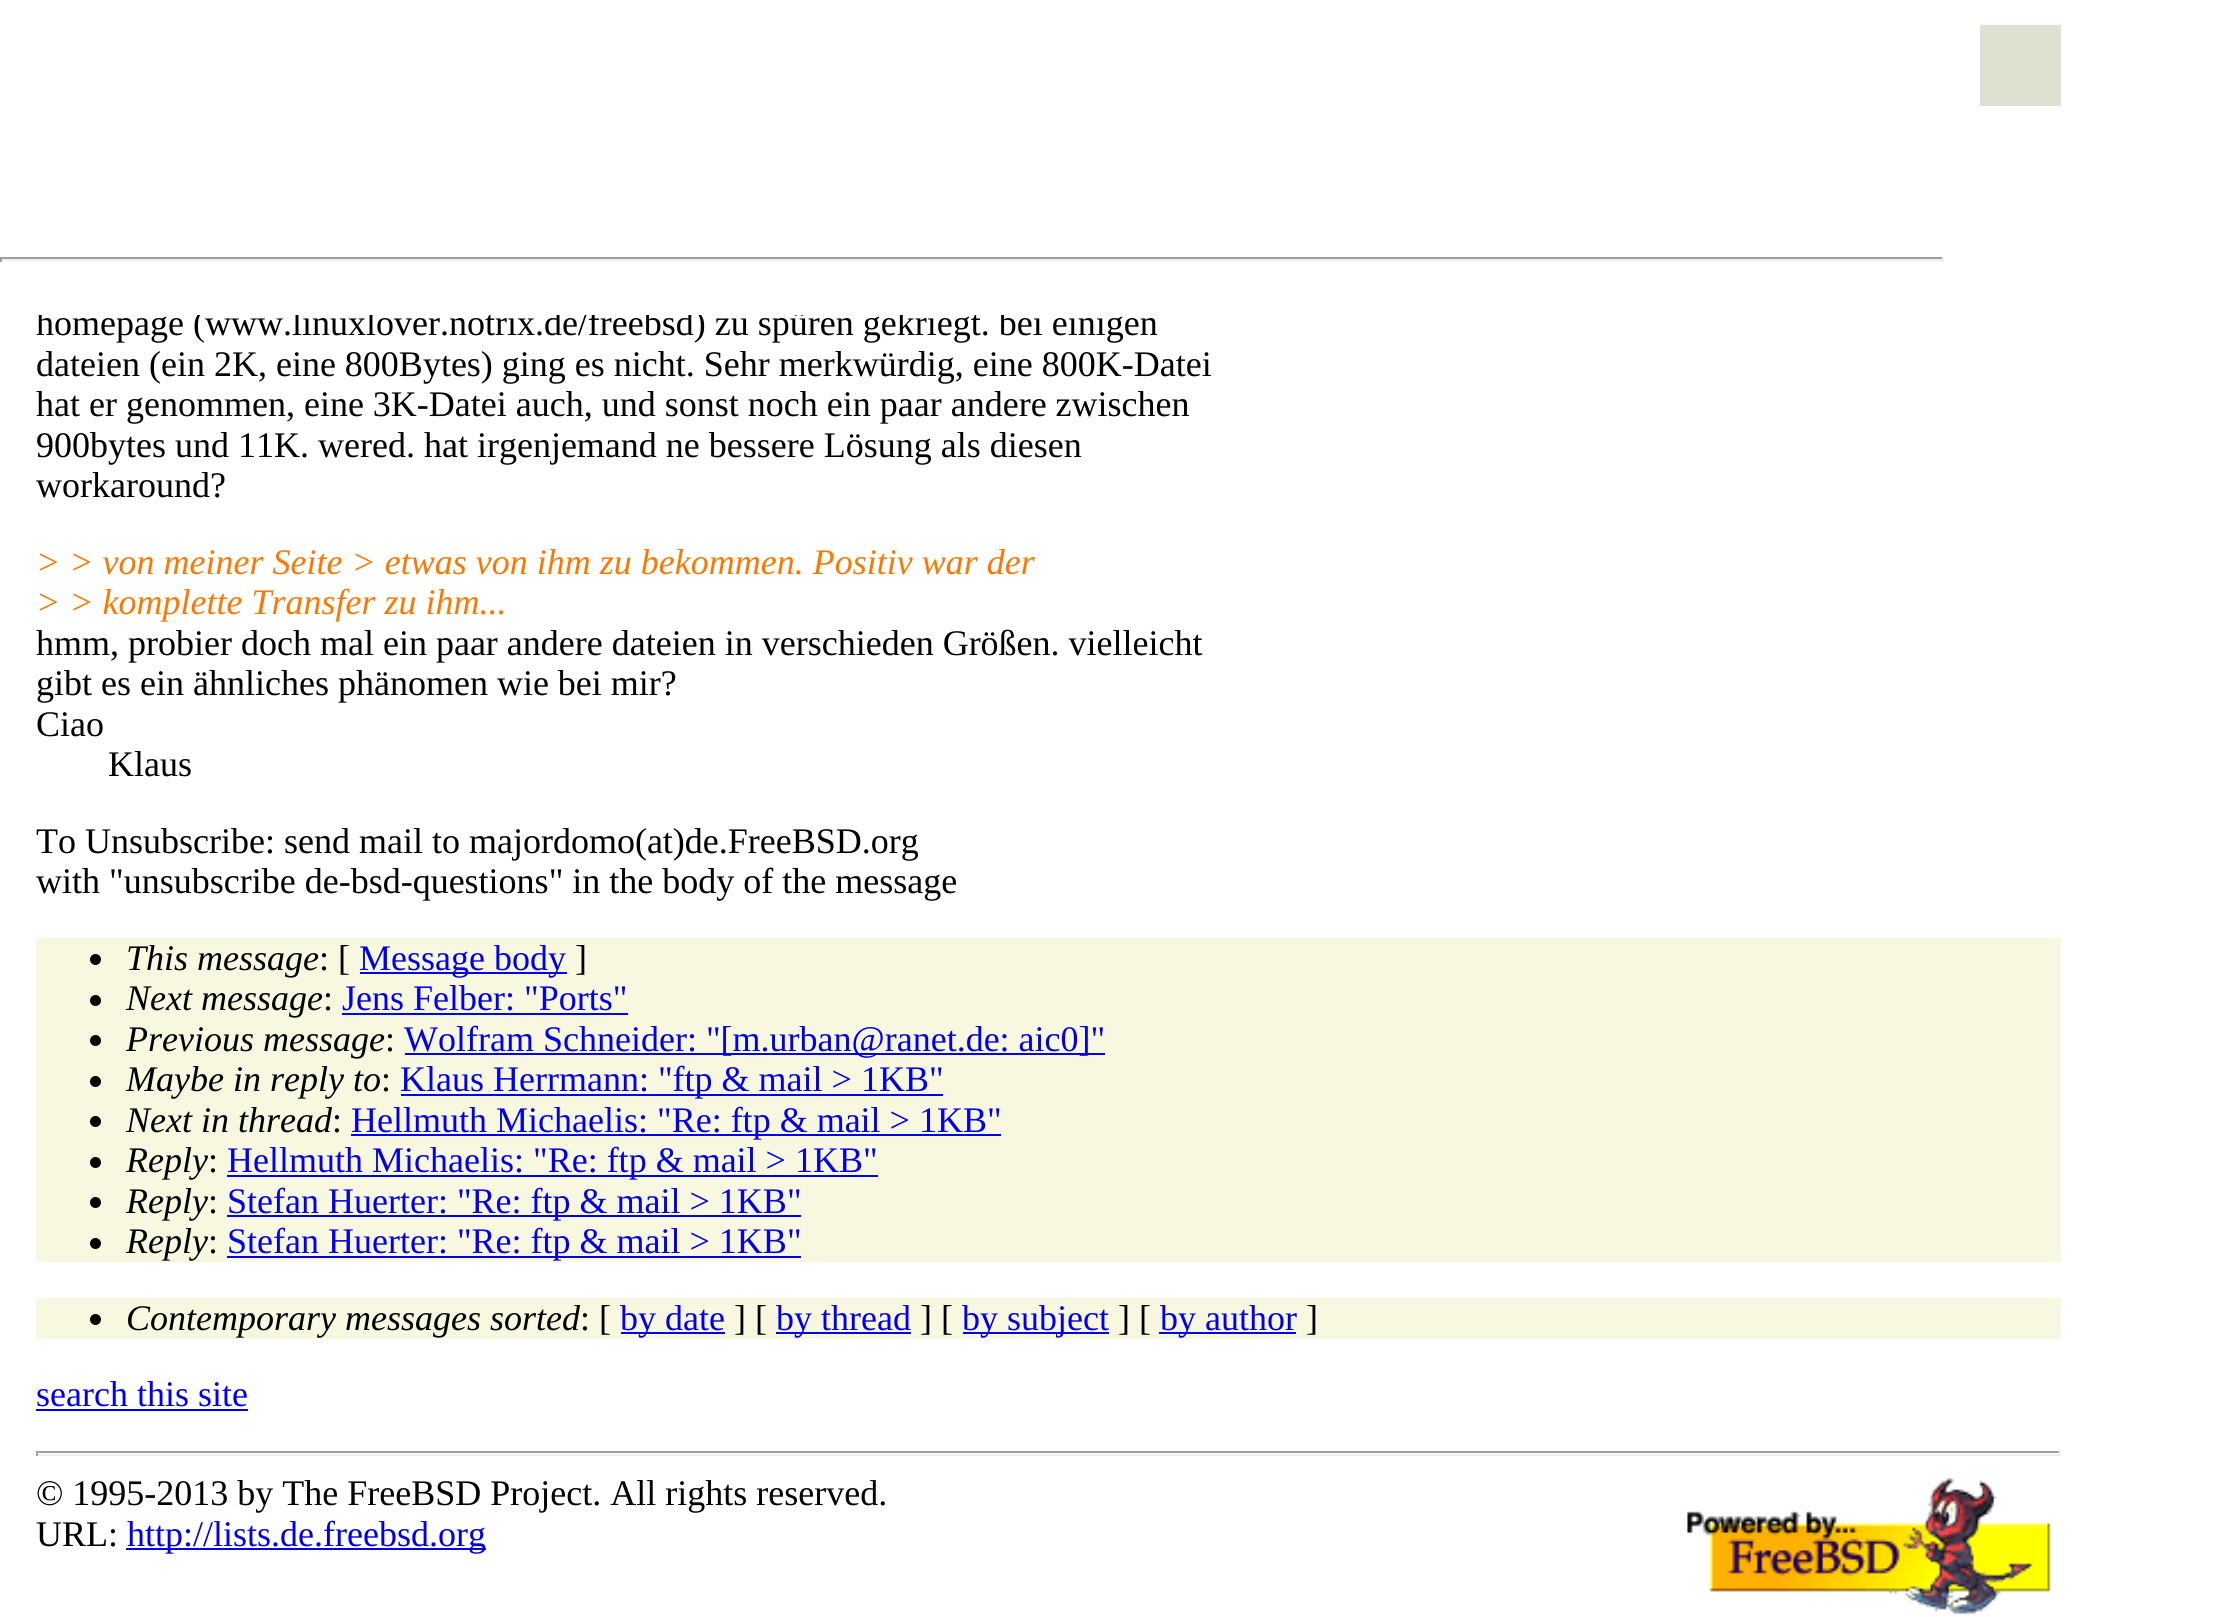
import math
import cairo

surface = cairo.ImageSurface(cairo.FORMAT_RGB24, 2225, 1617)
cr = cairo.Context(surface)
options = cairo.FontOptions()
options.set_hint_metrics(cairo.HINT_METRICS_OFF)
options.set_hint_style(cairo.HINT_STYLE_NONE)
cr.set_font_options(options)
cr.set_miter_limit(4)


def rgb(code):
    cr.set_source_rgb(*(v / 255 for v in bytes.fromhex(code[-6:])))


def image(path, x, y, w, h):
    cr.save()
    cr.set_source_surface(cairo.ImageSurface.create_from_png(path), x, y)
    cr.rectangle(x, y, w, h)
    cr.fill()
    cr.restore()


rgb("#ffffff")
cr.paint()
for x, y, w, h, color in [
    (0, 257, 1944, 2, "#9f9f9f"),
    (1942, 257, 2, 5, "#eeeeee"),
    (0, 259, 1944, 2, "#eeeeee"),
    (0, 257, 2, 5, "#9f9f9f"),
    (1980, 25, 81, 81, "#e0e0d0"),
    (36, 938, 2025, 324, "#f8f8e0"),
]:
    rgb(color)
    cr.rectangle(x, y, w, h)
    cr.fill()
rgb("#000000")
cr.arc(95.5, 959.5, 5.5, 0, 2 * math.pi)
cr.fill()
rgb("#0000ee")
cr.rectangle(360, 972, 207, 2)
cr.fill()
rgb("#000000")
cr.arc(95.5, 1000.5, 5.5, 0, 2 * math.pi)
cr.fill()
rgb("#0000ee")
cr.rectangle(342, 1013, 286, 2)
cr.fill()
rgb("#000000")
cr.arc(95.5, 1040.5, 5.5, 0, 2 * math.pi)
cr.fill()
rgb("#0000ee")
cr.rectangle(405, 1053, 700, 2)
cr.fill()
rgb("#000000")
cr.arc(95.5, 1081.5, 5.5, 0, 2 * math.pi)
cr.fill()
rgb("#0000ee")
cr.rectangle(401, 1094, 542, 2)
cr.fill()
rgb("#000000")
cr.arc(95.5, 1121.5, 5.5, 0, 2 * math.pi)
cr.fill()
rgb("#0000ee")
cr.rectangle(351, 1134, 650, 2)
cr.fill()
rgb("#000000")
cr.arc(95.5, 1162.5, 5.5, 0, 2 * math.pi)
cr.fill()
rgb("#0000ee")
cr.rectangle(227, 1175, 651, 2)
cr.fill()
rgb("#000000")
cr.arc(95.5, 1202.5, 5.5, 0, 2 * math.pi)
cr.fill()
rgb("#0000ee")
cr.rectangle(227, 1215, 574, 2)
cr.fill()
rgb("#000000")
cr.arc(95.5, 1243.5, 5.5, 0, 2 * math.pi)
cr.fill()
rgb("#0000ee")
cr.rectangle(227, 1256, 574, 2)
cr.fill()
rgb("#f8f8e0")
cr.rectangle(36, 1298, 2025, 41)
cr.fill()
rgb("#000000")
cr.arc(95.5, 1319.5, 5.5, 0, 2 * math.pi)
cr.fill()
for x, y, w, h, color in [
    (621, 1332, 104, 2, "#0000ee"),
    (776, 1332, 135, 2, "#0000ee"),
    (963, 1332, 146, 2, "#0000ee"),
    (1159, 1332, 137, 2, "#0000ee"),
    (36, 1409, 212, 2, "#0000ee"),
    (36, 1451, 2025, 2, "#9f9f9f"),
    (2059, 1451, 2, 5, "#eeeeee"),
    (36, 1454, 2025, 2, "#eeeeee"),
    (36, 1451, 2, 5, "#9f9f9f"),
]:
    rgb(color)
    cr.rectangle(x, y, w, h)
    cr.fill()
image("img/1.png", 1687, 1478, 364, 137)
rgb("#0000ee")
cr.rectangle(126, 1548, 360, 2)
cr.fill()
cr.select_font_face("Liberation Serif")
cr.set_font_size(36)
rgb("#000000")
cr.move_to(36, 335)
cr.show_text("homepage (www.linuxlover.notrix.de/freebsd) zu spüren gekriegt. bei einigen")
rgb("#ffffff")
cr.rectangle(36, 309, 1067, 6)
cr.fill()
rgb("#000000")
for x, y, s in [
    (36, 376, "dateien (ein 2K, eine 800Bytes) ging es nicht. Sehr merkwürdig, eine 800K-Datei"),
    (36, 416, "hat er genommen, eine 3K-Datei auch, und sonst noch ein paar andere zwischen"),
    (36, 457, "900bytes und 11K. wered. hat irgenjemand ne bessere Lösung als diesen"),
    (36, 497, "workaround?"),
]:
    cr.move_to(x, y)
    cr.show_text(s)
cr.select_font_face("Liberation Serif", cairo.FONT_SLANT_ITALIC)
rgb("#ff7700")
cr.move_to(36, 574)
cr.show_text("> > von meiner Seite > etwas von ihm zu bekommen. Positiv war der")
cr.move_to(36, 614)
cr.show_text("> > komplette Transfer zu ihm...")
cr.select_font_face("Liberation Serif")
rgb("#000000")
for x, y, s in [
    (36, 655, "hmm, probier doch mal ein paar andere dateien in verschieden Größen. vielleicht"),
    (36, 695, "gibt es ein ähnliches phänomen wie bei mir?"),
    (36, 736, "Ciao"),
    (108, 776, "Klaus"),
    (36, 853, "To Unsubscribe: send mail to majordomo(at)de.FreeBSD.org"),
    (36, 893, "with \"unsubscribe de-bsd-questions\" in the body of the message"),
]:
    cr.move_to(x, y)
    cr.show_text(s)
cr.select_font_face("Liberation Serif", cairo.FONT_SLANT_ITALIC)
cr.move_to(126, 970)
cr.show_text("This message")
cr.select_font_face("Liberation Serif")
cr.move_to(319, 970)
cr.show_text(": [")
rgb("#0000ee")
cr.move_to(359, 970)
cr.show_text("Message body")
rgb("#000000")
cr.move_to(575, 970)
cr.show_text("]")
cr.select_font_face("Liberation Serif", cairo.FONT_SLANT_ITALIC)
cr.move_to(126, 1010)
cr.show_text("Next message")
cr.select_font_face("Liberation Serif")
cr.move_to(323, 1010)
cr.show_text(":")
rgb("#0000ee")
cr.move_to(342, 1010)
cr.show_text("Jens Felber: \"Ports\"")
cr.select_font_face("Liberation Serif", cairo.FONT_SLANT_ITALIC)
rgb("#000000")
cr.move_to(126, 1051)
cr.show_text("Previous message")
cr.select_font_face("Liberation Serif")
cr.move_to(385, 1051)
cr.show_text(":")
rgb("#0000ee")
cr.move_to(404, 1051)
cr.show_text("Wolfram Schneider: \"[m.urban@ranet.de: aic0]\"")
cr.select_font_face("Liberation Serif", cairo.FONT_SLANT_ITALIC)
rgb("#000000")
cr.move_to(126, 1091)
cr.show_text("Maybe in reply to")
cr.select_font_face("Liberation Serif")
cr.move_to(381, 1091)
cr.show_text(":")
rgb("#0000ee")
cr.move_to(400, 1091)
cr.show_text("Klaus Herrmann: \"ftp & mail > 1KB\"")
cr.select_font_face("Liberation Serif", cairo.FONT_SLANT_ITALIC)
rgb("#000000")
cr.move_to(126, 1132)
cr.show_text("Next in thread")
cr.select_font_face("Liberation Serif")
cr.move_to(332, 1132)
cr.show_text(":")
rgb("#0000ee")
cr.move_to(351, 1132)
cr.show_text("Hellmuth Michaelis: \"Re: ftp & mail > 1KB\"")
cr.select_font_face("Liberation Serif", cairo.FONT_SLANT_ITALIC)
rgb("#000000")
cr.move_to(126, 1172)
cr.show_text("Reply")
cr.select_font_face("Liberation Serif")
cr.move_to(208, 1172)
cr.show_text(":")
rgb("#0000ee")
cr.move_to(227, 1172)
cr.show_text("Hellmuth Michaelis: \"Re: ftp & mail > 1KB\"")
cr.select_font_face("Liberation Serif", cairo.FONT_SLANT_ITALIC)
rgb("#000000")
cr.move_to(126, 1213)
cr.show_text("Reply")
cr.select_font_face("Liberation Serif")
cr.move_to(208, 1213)
cr.show_text(":")
rgb("#0000ee")
cr.move_to(227, 1213)
cr.show_text("Stefan Huerter: \"Re: ftp & mail > 1KB\"")
cr.select_font_face("Liberation Serif", cairo.FONT_SLANT_ITALIC)
rgb("#000000")
cr.move_to(126, 1253)
cr.show_text("Reply")
cr.select_font_face("Liberation Serif")
cr.move_to(208, 1253)
cr.show_text(":")
rgb("#0000ee")
cr.move_to(227, 1253)
cr.show_text("Stefan Huerter: \"Re: ftp & mail > 1KB\"")
cr.select_font_face("Liberation Serif", cairo.FONT_SLANT_ITALIC)
rgb("#000000")
cr.move_to(126, 1330)
cr.show_text("Contemporary messages sorted")
cr.select_font_face("Liberation Serif")
cr.move_to(580, 1330)
cr.show_text(": [")
rgb("#0000ee")
cr.move_to(620, 1330)
cr.show_text("by date")
rgb("#000000")
cr.move_to(734, 1330)
cr.show_text("] [")
rgb("#0000ee")
cr.move_to(776, 1330)
cr.show_text("by thread")
rgb("#000000")
cr.move_to(920, 1330)
cr.show_text("] [")
rgb("#0000ee")
cr.move_to(962, 1330)
cr.show_text("by subject")
rgb("#000000")
cr.move_to(1118, 1330)
cr.show_text("] [")
rgb("#0000ee")
cr.move_to(1160, 1330)
cr.show_text("by author")
rgb("#000000")
cr.move_to(1306, 1330)
cr.show_text("]")
rgb("#0000ee")
cr.move_to(36, 1406)
cr.show_text("search this site")
rgb("#000000")
cr.move_to(36, 1505)
cr.show_text("© 1995-2013 by The FreeBSD Project. All rights reserved.")
cr.move_to(36, 1546)
cr.show_text("URL:")
rgb("#0000ee")
cr.move_to(127, 1546)
cr.show_text("http://lists.de.freebsd.org")
surface.write_to_png("page.png")
